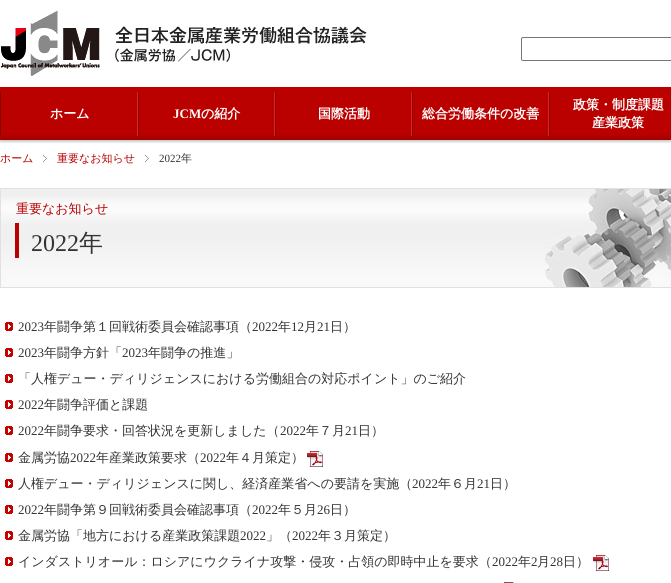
import math
import cairo

surface = cairo.ImageSurface(cairo.FORMAT_RGB24, 671, 583)
cr = cairo.Context(surface)
options = cairo.FontOptions()
options.set_hint_metrics(cairo.HINT_METRICS_OFF)
options.set_hint_style(cairo.HINT_STYLE_NONE)
cr.set_font_options(options)
cr.set_miter_limit(4)


def rgb(code):
    cr.set_source_rgb(*(v / 255 for v in bytes.fromhex(code[-6:])))


def rrect(x, y, w, h, r):
    cr.new_sub_path()
    for i, (u, v) in enumerate([(x + w - r, y + h - r), (x + r, y + h - r), (x + r, y + r), (x + w - r, y + r)]):
        cr.arc(u, v, r, i * math.pi / 2, (i + 1) * math.pi / 2)
    cr.close_path()


def soft_shadow(x, y, w, h, r, blur, alpha):
    cr.push_group_with_content(cairo.CONTENT_ALPHA)
    cr.set_operator(cairo.OPERATOR_SOURCE)
    for i in range(15, -16, -2):
        e = blur * i / 6
        if min(w, h) + 2 * e > 0:
            cr.set_source_rgba(0, 0, 0, alpha * math.erfc((i - 1) / 8.5) / 2)
            rrect(x - e, y - e, w + 2 * e, h + 2 * e, max(0, min(r + e + blur * .6, min(w, h) / 2 + e)))
            cr.fill()
    cr.mask(cr.pop_group())


def image(path, x, y, w, h):
    cr.save()
    cr.set_source_surface(cairo.ImageSurface.create_from_png(path), x, y)
    cr.rectangle(x, y, w, h)
    cr.fill()
    cr.restore()


rgb("#ffffff")
cr.paint()
image("img/1.png", 0, 10, 367, 66)
rrect(521.5, 37.5, 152, 23, 1.5)
rgb("#767676")
cr.set_line_width(1)
cr.stroke()
rgb("#cccccc")
soft_shadow(0, 89, 671, 53, 0, 1, 1)
gradient = cairo.LinearGradient(336, 87, 336, 140)
gradient.add_color_stop_rgba(0, 0.733, 0, 0, 1)
gradient.add_color_stop_rgba(0.88, 0.733, 0, 0, 1)
gradient.add_color_stop_rgba(1, 0.631, 0, 0, 1)
cr.set_source(gradient)
cr.rectangle(0, 87, 671, 53)
cr.fill()
for x, y, w, h, color in [
    (0, 92, 1, 44, "#860000"),
    (137, 92, 1, 44, "#d92525"),
    (138, 92, 1, 44, "#860000"),
    (274, 92, 1, 44, "#d92525"),
    (275, 92, 1, 44, "#860000"),
    (411, 92, 1, 44, "#d92525"),
    (412, 92, 1, 44, "#860000"),
    (548, 92, 1, 44, "#d92525"),
    (549, 92, 1, 44, "#860000"),
]:
    rgb(color)
    cr.rectangle(x, y, w, h)
    cr.fill()
image("img/2.png", 43, 155, 4, 7)
image("img/2.png", 145, 155, 4, 7)
image("img/3.png", 1, 189, 670, 98)
cr.rectangle(0.5, 188.5, 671, 99)
rgb("#e1e1e1")
cr.stroke()
image("img/4.png", 5, 322, 8, 9)
image("img/4.png", 5, 348, 8, 9)
image("img/4.png", 5, 374, 8, 9)
image("img/4.png", 5, 400, 8, 9)
image("img/4.png", 5, 426, 8, 9)
image("img/4.png", 5, 453, 8, 9)
image("img/5.png", 307, 451, 16, 16)
image("img/4.png", 5, 479, 8, 9)
image("img/4.png", 5, 505, 8, 9)
image("img/4.png", 5, 531, 8, 9)
image("img/4.png", 5, 557, 8, 9)
image("img/5.png", 593, 555, 16, 16)
image("img/6.png", 504, 582, 11, 1)
cr.select_font_face("WenQuanYi Zen Hei", cairo.FONT_SLANT_NORMAL, cairo.FONT_WEIGHT_BOLD)
cr.set_font_size(13)
rgb("#ffffff")
cr.move_to(50, 118)
cr.show_text("ホーム")
cr.select_font_face("Liberation Serif", cairo.FONT_SLANT_NORMAL, cairo.FONT_WEIGHT_BOLD)
cr.move_to(173, 118)
cr.show_text("JCM")
cr.select_font_face("WenQuanYi Zen Hei", cairo.FONT_SLANT_NORMAL, cairo.FONT_WEIGHT_BOLD)
for x, y, s in [
    (201, 118, "の紹介"),
    (318, 118, "国際活動"),
    (422, 118, "総合労働条件の改善"),
    (573, 109, "政策・制度課題"),
    (592, 127, "産業政策"),
]:
    cr.move_to(x, y)
    cr.show_text(s)
cr.select_font_face("WenQuanYi Zen Hei Medium")
cr.set_font_size(11)
rgb("#bb0000")
cr.move_to(0, 162)
cr.show_text("ホーム")
cr.move_to(57, 162)
cr.show_text("重要なお知らせ")
cr.select_font_face("Liberation Serif")
rgb("#333333")
cr.move_to(159, 162)
cr.show_text("2022")
cr.select_font_face("WenQuanYi Zen Hei Medium")
cr.move_to(181, 162)
cr.show_text("年")
cr.set_font_size(13)
rgb("#bb0000")
cr.move_to(16, 213)
cr.show_text("重要なお知らせ")
cr.select_font_face("Liberation Serif")
cr.set_font_size(24)
rgb("#333333")
cr.move_to(31, 251)
cr.show_text("2022")
cr.select_font_face("WenQuanYi Zen Hei Medium")
cr.move_to(79, 251)
cr.show_text("年")
cr.select_font_face("Liberation Serif")
cr.set_font_size(13)
cr.move_to(18, 331)
cr.show_text("2023")
cr.select_font_face("WenQuanYi Zen Hei Medium")
cr.move_to(44, 331)
cr.show_text("年闘争第１回戦術委員会確認事項（")
cr.select_font_face("Liberation Serif")
cr.move_to(252, 331)
cr.show_text("2022")
cr.select_font_face("WenQuanYi Zen Hei Medium")
cr.move_to(278, 331)
cr.show_text("年")
cr.select_font_face("Liberation Serif")
cr.move_to(291, 331)
cr.show_text("12")
cr.select_font_face("WenQuanYi Zen Hei Medium")
cr.move_to(304, 331)
cr.show_text("月")
cr.select_font_face("Liberation Serif")
cr.move_to(317, 331)
cr.show_text("21")
cr.select_font_face("WenQuanYi Zen Hei Medium")
cr.move_to(330, 331)
cr.show_text("日）")
cr.select_font_face("Liberation Serif")
cr.move_to(18, 357)
cr.show_text("2023")
cr.select_font_face("WenQuanYi Zen Hei Medium")
cr.move_to(44, 357)
cr.show_text("年闘争方針「")
cr.select_font_face("Liberation Serif")
cr.move_to(122, 357)
cr.show_text("2023")
cr.select_font_face("WenQuanYi Zen Hei Medium")
cr.move_to(148, 357)
cr.show_text("年闘争の推進」")
cr.move_to(18, 383)
cr.show_text("「人権デュー・ディリジェンスにおける労働組合の対応ポイント」のご紹介")
cr.select_font_face("Liberation Serif")
cr.move_to(18, 409)
cr.show_text("2022")
cr.select_font_face("WenQuanYi Zen Hei Medium")
cr.move_to(44, 409)
cr.show_text("年闘争評価と課題")
cr.select_font_face("Liberation Serif")
cr.move_to(18, 435)
cr.show_text("2022")
cr.select_font_face("WenQuanYi Zen Hei Medium")
cr.move_to(44, 435)
cr.show_text("年闘争要求・回答状況を更新しました（")
cr.select_font_face("Liberation Serif")
cr.move_to(280, 435)
cr.show_text("2022")
cr.select_font_face("WenQuanYi Zen Hei Medium")
cr.move_to(306, 435)
cr.show_text("年７月")
cr.select_font_face("Liberation Serif")
cr.move_to(345, 435)
cr.show_text("21")
cr.select_font_face("WenQuanYi Zen Hei Medium")
cr.move_to(358, 435)
cr.show_text("日）")
cr.move_to(18, 462)
cr.show_text("金属労協")
cr.select_font_face("Liberation Serif")
cr.move_to(70, 462)
cr.show_text("2022")
cr.select_font_face("WenQuanYi Zen Hei Medium")
cr.move_to(96, 462)
cr.show_text("年産業政策要求（")
cr.select_font_face("Liberation Serif")
cr.move_to(200, 462)
cr.show_text("2022")
cr.select_font_face("WenQuanYi Zen Hei Medium")
cr.move_to(226, 462)
cr.show_text("年４月策定）")
cr.move_to(18, 488)
cr.show_text("人権デュー・ディリジェンスに関し、経済産業省への要請を実施（")
cr.select_font_face("Liberation Serif")
cr.move_to(412, 488)
cr.show_text("2022")
cr.select_font_face("WenQuanYi Zen Hei Medium")
cr.move_to(438, 488)
cr.show_text("年６月")
cr.select_font_face("Liberation Serif")
cr.move_to(477, 488)
cr.show_text("21")
cr.select_font_face("WenQuanYi Zen Hei Medium")
cr.move_to(490, 488)
cr.show_text("日）")
cr.select_font_face("Liberation Serif")
cr.move_to(18, 514)
cr.show_text("2022")
cr.select_font_face("WenQuanYi Zen Hei Medium")
cr.move_to(44, 514)
cr.show_text("年闘争第９回戦術委員会確認事項（")
cr.select_font_face("Liberation Serif")
cr.move_to(252, 514)
cr.show_text("2022")
cr.select_font_face("WenQuanYi Zen Hei Medium")
cr.move_to(278, 514)
cr.show_text("年５月")
cr.select_font_face("Liberation Serif")
cr.move_to(317, 514)
cr.show_text("26")
cr.select_font_face("WenQuanYi Zen Hei Medium")
cr.move_to(330, 514)
cr.show_text("日）")
cr.move_to(18, 540)
cr.show_text("金属労協「地方における産業政策課題")
cr.select_font_face("Liberation Serif")
cr.move_to(240, 540)
cr.show_text("2022")
cr.select_font_face("WenQuanYi Zen Hei Medium")
cr.move_to(266, 540)
cr.show_text("」（")
cr.select_font_face("Liberation Serif")
cr.move_to(292, 540)
cr.show_text("2022")
cr.select_font_face("WenQuanYi Zen Hei Medium")
cr.move_to(318, 540)
cr.show_text("年３月策定）")
cr.move_to(18, 566)
cr.show_text("インダストリオール：ロシアにウクライナ攻撃・侵攻・占領の即時中止を要求（")
cr.select_font_face("Liberation Serif")
cr.move_to(492, 566)
cr.show_text("2022")
cr.select_font_face("WenQuanYi Zen Hei Medium")
cr.move_to(518, 566)
cr.show_text("年")
cr.select_font_face("Liberation Serif")
cr.move_to(531, 566)
cr.show_text("2")
cr.select_font_face("WenQuanYi Zen Hei Medium")
cr.move_to(537, 566)
cr.show_text("月")
cr.select_font_face("Liberation Serif")
cr.move_to(550, 566)
cr.show_text("28")
cr.select_font_face("WenQuanYi Zen Hei Medium")
cr.move_to(563, 566)
cr.show_text("日）")
surface.write_to_png("page.png")
